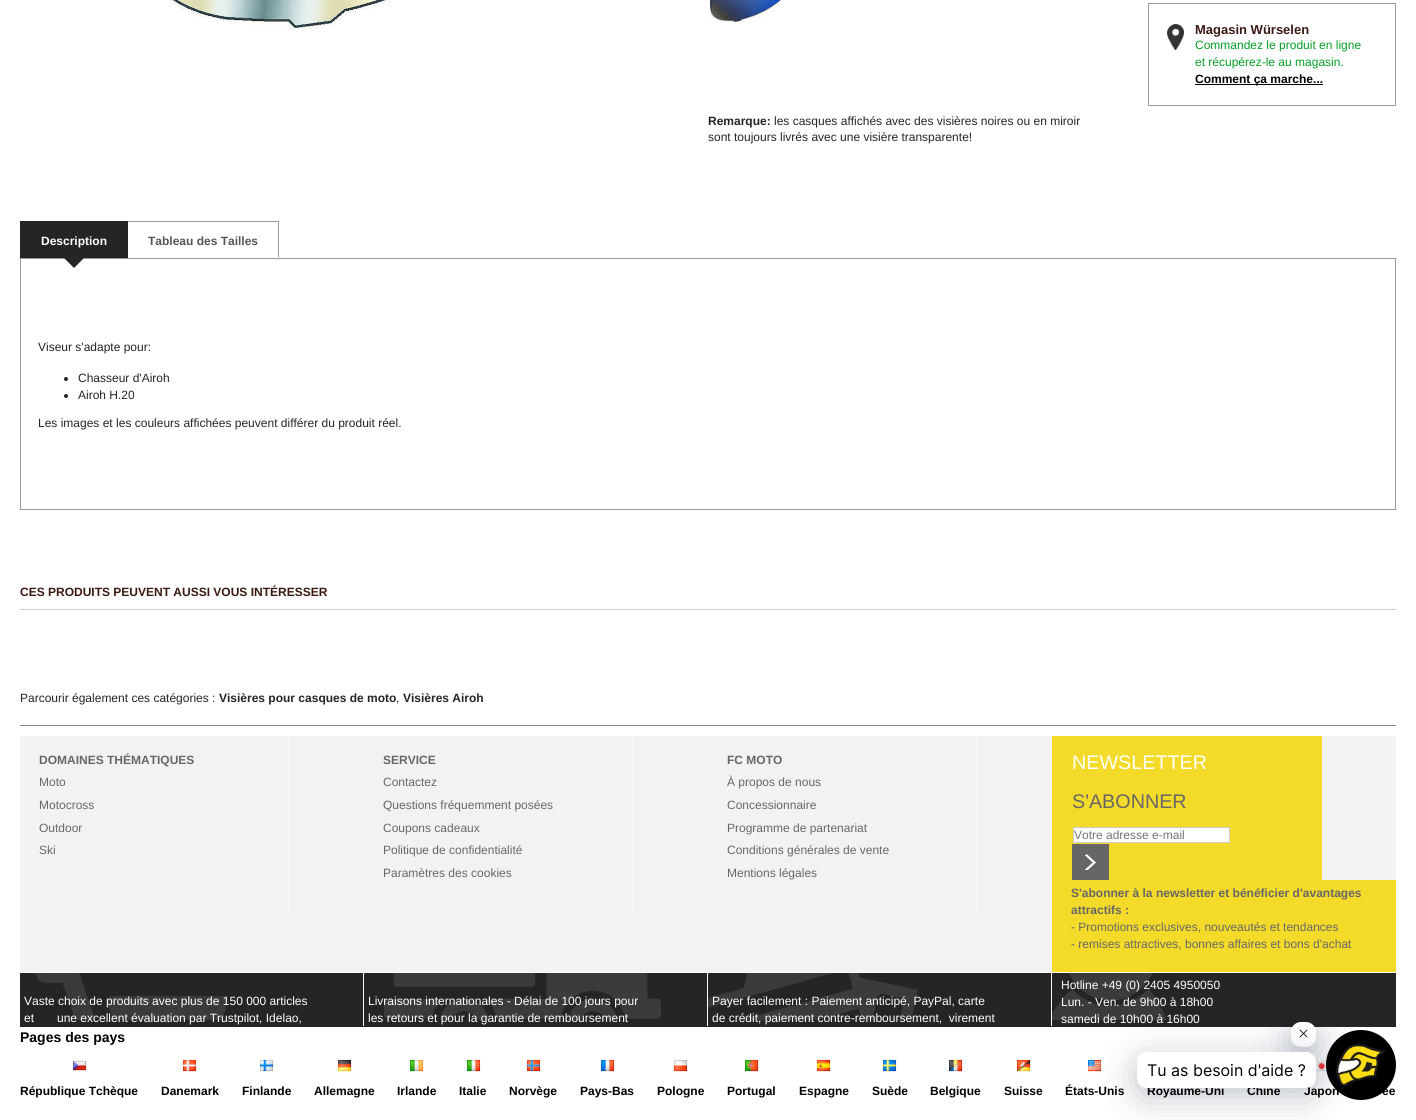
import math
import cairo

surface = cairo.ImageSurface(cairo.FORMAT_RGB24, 1416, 1120)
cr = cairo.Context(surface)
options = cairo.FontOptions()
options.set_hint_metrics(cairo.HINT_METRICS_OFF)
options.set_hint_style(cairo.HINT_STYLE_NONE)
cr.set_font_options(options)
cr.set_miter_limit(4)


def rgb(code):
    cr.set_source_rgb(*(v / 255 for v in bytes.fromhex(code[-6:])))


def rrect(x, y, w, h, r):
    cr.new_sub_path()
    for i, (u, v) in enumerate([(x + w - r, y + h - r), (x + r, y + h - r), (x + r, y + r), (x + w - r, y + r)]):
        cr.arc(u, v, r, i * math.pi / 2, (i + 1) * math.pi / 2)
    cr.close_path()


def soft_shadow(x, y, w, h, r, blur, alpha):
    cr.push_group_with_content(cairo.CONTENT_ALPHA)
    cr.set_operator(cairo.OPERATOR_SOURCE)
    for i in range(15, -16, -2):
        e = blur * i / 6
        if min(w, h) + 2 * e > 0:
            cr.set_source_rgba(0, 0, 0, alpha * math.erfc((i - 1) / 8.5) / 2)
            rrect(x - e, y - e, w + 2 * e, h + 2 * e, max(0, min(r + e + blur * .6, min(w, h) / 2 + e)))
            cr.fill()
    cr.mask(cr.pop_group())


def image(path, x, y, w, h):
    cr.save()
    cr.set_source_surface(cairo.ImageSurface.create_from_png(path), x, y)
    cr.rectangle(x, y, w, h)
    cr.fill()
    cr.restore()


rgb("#ffffff")
cr.paint()
rgb("#888888")
cr.rectangle(20, 725, 1376, 1)
cr.fill()
image("img/1.png", 168, 0, 224, 29)
cr.rectangle(1148.5, 3.5, 247, 102)
rgb("#9b9b9b")
cr.set_line_width(1)
cr.stroke()
image("img/2.png", 1167, 24, 17, 26)
rgb("#000000")
cr.rectangle(1195, 84, 128, 1)
cr.fill()
image("img/3.png", 710, 0, 71, 22)
rgb("#252525")
cr.rectangle(20, 221, 108, 37)
cr.fill()
cr.rectangle(20.5, 258.5, 1375, 251)
rgb("#999999")
cr.stroke()
rgb("#252525")
cr.new_path()
cr.move_to(64, 258)
cr.line_to(84, 258)
cr.line_to(74, 268)
cr.close_path()
cr.fill()
rgb("#999999")
cr.rectangle(128, 221, 151, 1)
cr.fill()
cr.rectangle(278, 221, 1, 36)
cr.fill()
rgb("#252525")
cr.arc(66, 379, 2, 0, 2 * math.pi)
cr.fill()
cr.arc(66, 396, 2, 0, 2 * math.pi)
cr.fill()
for x, y, w, h, color in [
    (20, 609, 1376, 1, "#cccccc"),
    (20, 736, 1376, 236, "#f2f2f2"),
    (289, 736, 1, 175, "#ffffff"),
    (633, 736, 1, 175, "#ffffff"),
    (977, 736, 1, 175, "#ffffff"),
    (1052, 736, 270, 144, "#f4da29"),
]:
    rgb(color)
    cr.rectangle(x, y, w, h)
    cr.fill()
rgb("#ffffff")
cr.rectangle(1073.5, 827.5, 156, 15)
cr.fill_preserve()
rgb("#cccccc")
cr.stroke()
rgb("#666666")
cr.rectangle(1072, 844, 37, 36)
cr.fill()
image("img/4.png", 1085, 854, 11, 16)
rgb("#f4da29")
cr.rectangle(1052, 880, 344, 92)
cr.fill()
rgb("#252525")
cr.rectangle(20, 973, 1376, 54)
cr.fill()
image("img/5.png", 36, 973, 192, 47)
rgb("#ffffff")
cr.rectangle(363, 973, 1, 53)
cr.fill()
image("img/6.png", 384, 973, 277, 47)
cr.rectangle(707, 973, 1, 53)
cr.fill()
image("img/7.png", 708, 973, 210, 47)
cr.rectangle(1051, 973, 1, 53)
cr.fill()
image("img/8.png", 1052, 973, 115, 47)
image("img/9.png", 73, 1060, 14, 11)
image("img/10.png", 183, 1059, 14, 13)
image("img/11.png", 260, 1059, 14, 13)
image("img/12.png", 338, 1059, 14, 13)
image("img/13.png", 410, 1059, 14, 13)
image("img/14.png", 467, 1059, 14, 13)
image("img/15.png", 527, 1059, 14, 13)
image("img/16.png", 601, 1059, 14, 13)
image("img/17.png", 674, 1059, 14, 13)
image("img/18.png", 745, 1059, 14, 13)
image("img/19.png", 817, 1059, 14, 13)
image("img/20.png", 883, 1059, 14, 13)
image("img/21.png", 949, 1059, 14, 13)
image("img/22.png", 1016, 1059, 15, 14)
image("img/23.png", 1088, 1059, 14, 13)
image("img/24.png", 1315, 1061, 12, 11)
rgb("#000000")
cr.arc(1361, 1065, 35, 0, 2 * math.pi)
cr.fill()
image("img/25.png", 1336, 1044, 50, 42)
rgb("#00122e")
soft_shadow(1291, 1030, 25, 25, 10, 18, 0.25)
rgb("#ffffff")
rrect(1291, 1022, 25, 25, 10)
cr.fill()
cr.new_path()
cr.move_to(1300, 1037)
cr.line_to(1307, 1030)
cr.move_to(1300, 1030)
cr.line_to(1307, 1037)
rgb("#000000")
cr.set_line_width(0.8)
cr.set_line_cap(cairo.LINE_CAP_ROUND)
cr.set_line_join(cairo.LINE_JOIN_ROUND)
cr.stroke()
rgb("#00122e")
soft_shadow(1137, 1060, 179, 36, 10, 18, 0.25)
cr.select_font_face("Liberation Sans", cairo.FONT_SLANT_NORMAL, cairo.FONT_WEIGHT_BOLD)
cr.set_font_size(13)
rgb("#3c1913")
cr.move_to(1195, 34)
cr.show_text("Magasin Würselen")
cr.select_font_face("Liberation Sans")
cr.set_font_size(12)
rgb("#069e25")
cr.move_to(1195, 49)
cr.show_text("Commandez le produit en ligne")
cr.move_to(1195, 66)
cr.show_text("et récupérez-le au magasin.")
cr.select_font_face("Liberation Sans", cairo.FONT_SLANT_NORMAL, cairo.FONT_WEIGHT_BOLD)
rgb("#000000")
cr.move_to(1195, 83)
cr.show_text("Comment ça marche...")
rgb("#252525")
cr.move_to(708, 125)
cr.show_text("Remarque:")
cr.select_font_face("Liberation Sans")
cr.move_to(774, 125)
cr.show_text("les casques affichés avec des visières noires ou en miroir")
cr.move_to(708, 141)
cr.show_text("sont toujours livrés avec une visière transparente!")
cr.select_font_face("Liberation Sans", cairo.FONT_SLANT_NORMAL, cairo.FONT_WEIGHT_BOLD)
rgb("#ffffff")
cr.move_to(41, 245)
cr.show_text("Description")
rgb("#555555")
cr.move_to(148, 245)
cr.show_text("Tableau des Tailles")
cr.select_font_face("Liberation Sans")
rgb("#252525")
for x, y, s in [
    (38, 351, "Viseur s'adapte pour:"),
    (78, 382, "Chasseur d'Airoh"),
    (78, 399, "Airoh H.20"),
    (38, 427, "Les images et les couleurs affichées peuvent différer du produit réel."),
]:
    cr.move_to(x, y)
    cr.show_text(s)
cr.select_font_face("Liberation Sans", cairo.FONT_SLANT_NORMAL, cairo.FONT_WEIGHT_BOLD)
rgb("#3c1913")
cr.move_to(20, 596)
cr.show_text("CES PRODUITS PEUVENT AUSSI VOUS INTÉRESSER")
cr.select_font_face("Liberation Sans")
rgb("#252525")
cr.move_to(20, 702)
cr.show_text("Parcourir également ces catégories :")
cr.select_font_face("Liberation Sans", cairo.FONT_SLANT_NORMAL, cairo.FONT_WEIGHT_BOLD)
cr.move_to(219, 702)
cr.show_text("Visières pour casques de moto")
cr.select_font_face("Liberation Sans")
cr.move_to(396, 702)
cr.show_text(",")
cr.select_font_face("Liberation Sans", cairo.FONT_SLANT_NORMAL, cairo.FONT_WEIGHT_BOLD)
cr.move_to(403, 702)
cr.show_text("Visières Airoh")
rgb("#676767")
cr.move_to(39, 764)
cr.show_text("DOMAINES THÉMATIQUES")
cr.select_font_face("Liberation Sans")
for x, y, s in [
    (39, 786, "Moto"),
    (39, 809, "Motocross"),
    (39, 832, "Outdoor"),
    (39, 854, "Ski"),
]:
    cr.move_to(x, y)
    cr.show_text(s)
cr.select_font_face("Liberation Sans", cairo.FONT_SLANT_NORMAL, cairo.FONT_WEIGHT_BOLD)
cr.move_to(383, 764)
cr.show_text("SERVICE")
cr.select_font_face("Liberation Sans")
for x, y, s in [
    (383, 786, "Contactez"),
    (383, 809, "Questions fréquemment posées"),
    (383, 832, "Coupons cadeaux"),
    (383, 854, "Politique de confidentialité"),
    (383, 877, "Paramètres des cookies"),
]:
    cr.move_to(x, y)
    cr.show_text(s)
cr.select_font_face("Liberation Sans", cairo.FONT_SLANT_NORMAL, cairo.FONT_WEIGHT_BOLD)
cr.move_to(727, 764)
cr.show_text("FC MOTO")
cr.select_font_face("Liberation Sans")
for x, y, s in [
    (727, 786, "À propos de nous"),
    (727, 809, "Concessionnaire"),
    (727, 832, "Programme de partenariat"),
    (727, 854, "Conditions générales de vente"),
    (727, 877, "Mentions légales"),
]:
    cr.move_to(x, y)
    cr.show_text(s)
cr.set_font_size(19.75)
rgb("#ffffff")
cr.move_to(1072, 769)
cr.show_text("NEWSLETTER")
rgb("#676767")
cr.move_to(1072, 808)
cr.show_text("S'ABONNER")
cr.set_font_size(12)
rgb("#757575")
cr.move_to(1074, 839)
cr.show_text("Votre adresse e-mail")
cr.select_font_face("Liberation Sans", cairo.FONT_SLANT_NORMAL, cairo.FONT_WEIGHT_BOLD)
rgb("#676767")
cr.move_to(1071, 897)
cr.show_text("S'abonner à la newsletter et bénéficier d'avantages")
cr.move_to(1071, 914)
cr.show_text("attractifs :")
cr.select_font_face("Liberation Sans")
cr.move_to(1071, 931)
cr.show_text("- Promotions exclusives, nouveautés et tendances")
cr.move_to(1071, 948)
cr.show_text("- remises attractives, bonnes affaires et bons d'achat")
rgb("#ffffff")
for x, y, s in [
    (24, 1005, "Vaste choix de produits avec plus de 150 000 articles"),
    (24, 1022, "et"),
    (57, 1022, "une excellent évaluation par Trustpilot, Idelao,"),
    (368, 1005, "Livraisons internationales - Délai de 100 jours pour"),
    (368, 1022, "les retours et pour la garantie de remboursement"),
    (712, 1005, "Payer facilement : Paiement anticipé, PayPal, carte"),
    (712, 1022, "de crédit, paiement contre-remboursement,  virement"),
    (1061, 989, "Hotline +49 (0) 2405 4950050"),
    (1061, 1006, "Lun. - Ven. de 9h00 à 18h00"),
    (1061, 1023, "samedi de 10h00 à 16h00"),
]:
    cr.move_to(x, y)
    cr.show_text(s)
cr.select_font_face("Liberation Sans", cairo.FONT_SLANT_NORMAL, cairo.FONT_WEIGHT_BOLD)
cr.set_font_size(14)
rgb("#000000")
cr.move_to(20, 1042)
cr.show_text("Pages des pays")
cr.set_font_size(12)
for x, y, s in [
    (20, 1095, "République Tchèque"),
    (161, 1095, "Danemark"),
    (242, 1095, "Finlande"),
    (314, 1095, "Allemagne"),
    (397, 1095, "Irlande"),
    (459, 1095, "Italie"),
    (509, 1095, "Norvège"),
    (580, 1095, "Pays-Bas"),
    (657, 1095, "Pologne"),
    (727, 1095, "Portugal"),
    (799, 1095, "Espagne"),
    (872, 1095, "Suède"),
    (930, 1095, "Belgique"),
    (1004, 1095, "Suisse"),
    (1065, 1095, "États-Unis"),
    (1147, 1095, "Royaume-Uni"),
    (1247, 1095, "Chine"),
    (1304, 1095, "Japon"),
    (1382, 1095, "ée"),
]:
    cr.move_to(x, y)
    cr.show_text(s)
rgb("#ffffff")
rrect(1137, 1052, 179, 36, 10)
cr.fill()
cr.select_font_face("Inter")
cr.set_font_size(16)
rgb("#000000")
cr.move_to(1147, 1076)
cr.show_text("Tu as besoin d'aide ?")
surface.write_to_png("page.png")
